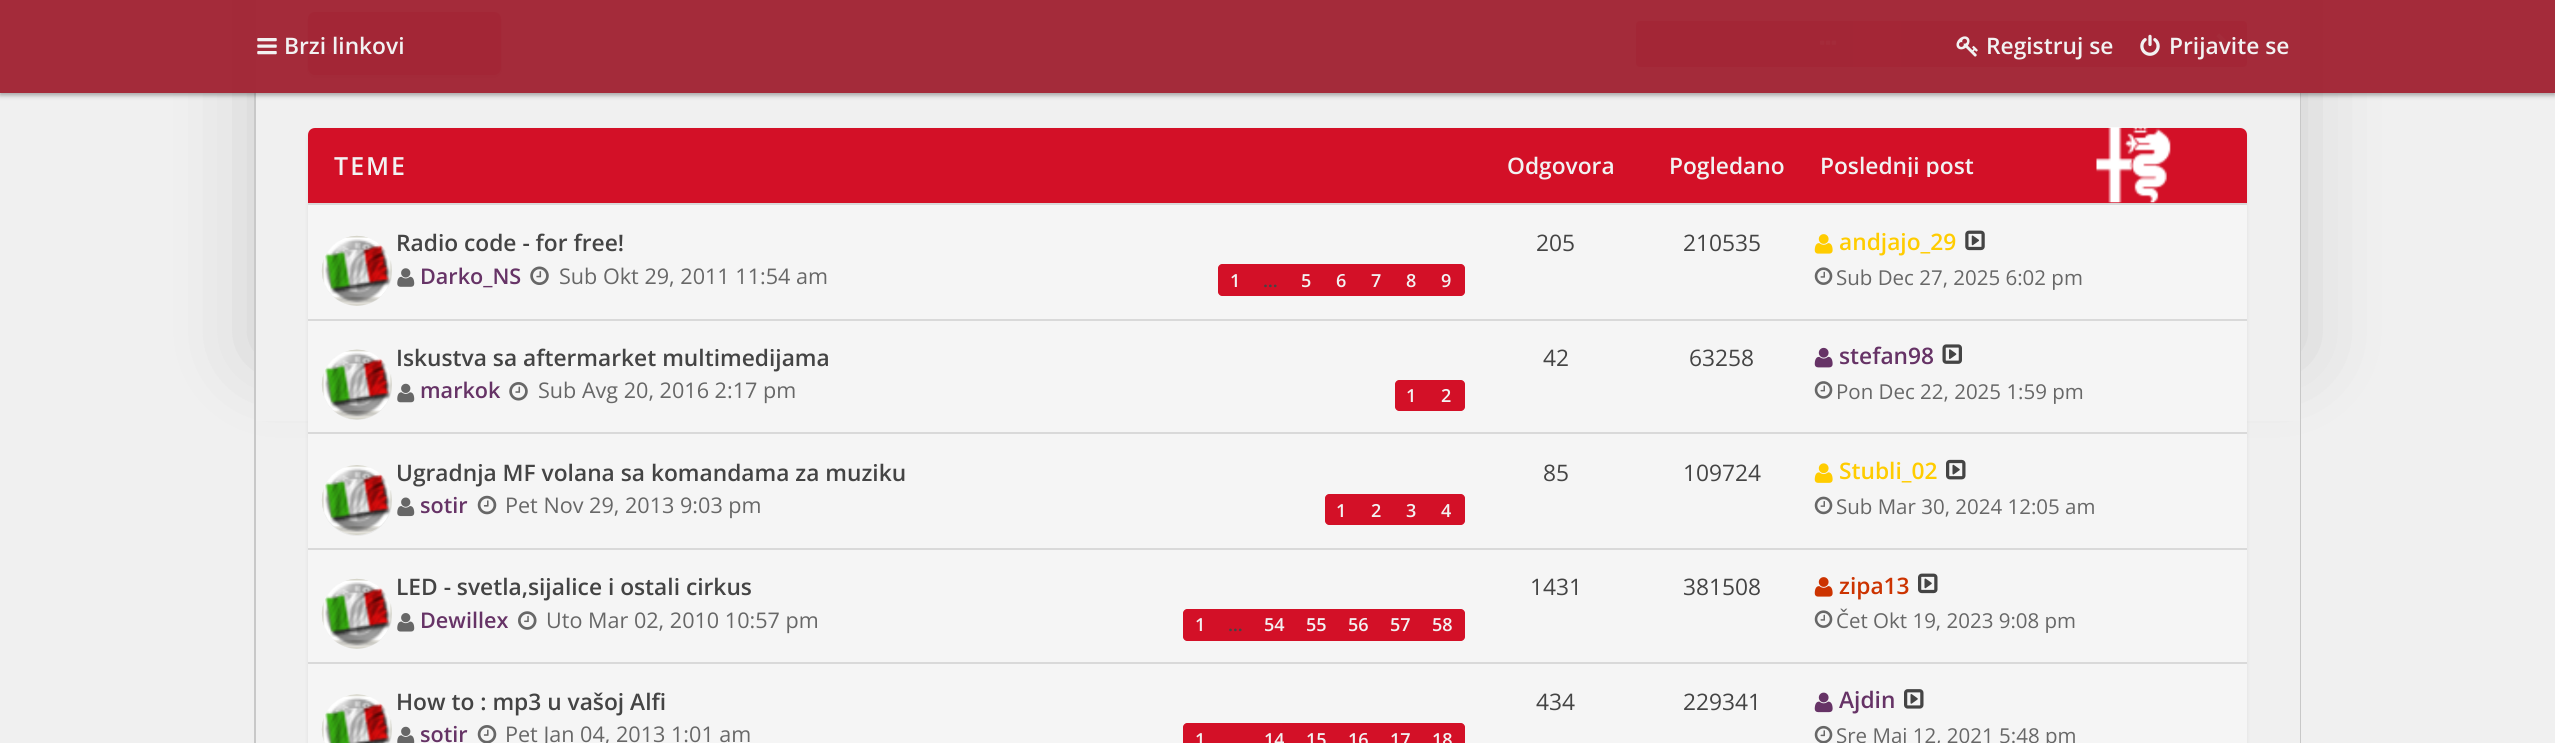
import math
import cairo

surface = cairo.ImageSurface(cairo.FORMAT_RGB24, 2555, 743)
cr = cairo.Context(surface)
options = cairo.FontOptions()
options.set_hint_metrics(cairo.HINT_METRICS_OFF)
options.set_hint_style(cairo.HINT_STYLE_NONE)
cr.set_font_options(options)
cr.set_miter_limit(4)


def rgb(code):
    cr.set_source_rgb(*(v / 255 for v in bytes.fromhex(code[-6:])))


def tracked(x, y, s, letter, word):
    cr.move_to(x, y)
    for ch in s:
        cr.show_text(ch)
        cr.rel_move_to(letter + word * (ch == ' '), 0)


def rrect(x, y, w, h, r):
    cr.new_sub_path()
    for i, (u, v) in enumerate([(x + w - r, y + h - r), (x + r, y + h - r), (x + r, y + r), (x + w - r, y + r)]):
        cr.arc(u, v, r, i * math.pi / 2, (i + 1) * math.pi / 2)
    cr.close_path()


def soft_shadow(x, y, w, h, r, blur, alpha):
    cr.push_group_with_content(cairo.CONTENT_ALPHA)
    cr.set_operator(cairo.OPERATOR_SOURCE)
    for i in range(15, -16, -2):
        e = blur * i / 6
        if min(w, h) + 2 * e > 0:
            cr.set_source_rgba(0, 0, 0, alpha * math.erfc((i - 1) / 8.5) / 2)
            rrect(x - e, y - e, w + 2 * e, h + 2 * e, max(0, min(r + e + blur * .6, min(w, h) / 2 + e)))
            cr.fill()
    cr.mask(cr.pop_group())


def image(path, x, y, w, h):
    cr.save()
    cr.set_source_surface(cairo.ImageSurface.create_from_png(path), x, y)
    cr.rectangle(x, y, w, h)
    cr.fill()
    cr.restore()


rgb("#f0f0f0")
cr.paint()
rgb("#000000")
soft_shadow(254, -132, 2047, 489, 0, 44, 0.15)
for x, y, w, h, color in [
    (256, 0, 2044, 421, "#f0f0f0"),
    (2300, 0, 1, 743, "#c8c8c8"),
    (254, 0, 2, 743, "#c8c8c8"),
]:
    rgb(color)
    cr.rectangle(x, y, w, h)
    cr.fill()
rgb("#000000")
soft_shadow(308, 14, 193, 63, 7, 2.5, 0.15)
rgb("#d31027")
rrect(308, 12, 193, 63, 7)
cr.fill()
image("img/4.png", 323, 34, 20, 21)
cr.new_path()
cr.move_to(1640, 21)
cr.line_to(1853, 21)
cr.line_to(1853, 67)
cr.line_to(1640, 67)
cr.curve_to(1638, 67, 1636, 65, 1636, 63)
cr.line_to(1636, 25)
cr.curve_to(1636, 23, 1638, 21, 1640, 21)
cr.close_path()
cr.fill()
image("img/5.png", 1820, 40, 17, 5)
rgb("#eb122b")
cr.rectangle(1853, 21, 48, 46)
cr.fill()
rgb("#d31027")
cr.rectangle(1901, 21, 297, 46)
cr.fill()
cr.new_path()
cr.move_to(2198, 21)
cr.line_to(2243, 21)
cr.curve_to(2245, 21, 2247, 23, 2247, 25)
cr.line_to(2247, 63)
cr.curve_to(2247, 65, 2245, 67, 2243, 67)
cr.line_to(2198, 67)
cr.close_path()
cr.fill()
image("img/6.png", 2216, 33, 13, 19)
cr.save()
cr.set_fill_rule(cairo.FILL_RULE_EVEN_ODD)
cr.new_path()
cr.move_to(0, 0)
cr.line_to(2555, 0)
cr.line_to(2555, 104)
cr.line_to(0, 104)
cr.close_path()
cr.move_to(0, 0)
cr.line_to(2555, 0)
cr.line_to(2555, 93)
cr.line_to(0, 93)
cr.close_path()
cr.clip()
rgb("#000000")
soft_shadow(0, 2, 2555, 93, 0, 2.5, 0.35)
cr.restore()
cr.set_source_rgba(0.635, 0.153, 0.212, 0.98)
cr.rectangle(0, 0, 2555, 93)
cr.fill()
image("img/1.png", 257, 38, 20, 17)
image("img/2.png", 1956, 36, 22, 21)
image("img/3.png", 2140, 34, 20, 22)
rgb("#000000")
soft_shadow(308, 130, 1939, 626, 7, 2, 0.07)
rgb("#f5f5f5")
rrect(308, 128, 1939, 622, 7)
cr.fill()
rgb("#d31027")
cr.new_path()
cr.move_to(315, 128)
cr.line_to(2240, 128)
cr.curve_to(2244, 128, 2247, 131, 2247, 135)
cr.line_to(2247, 203)
cr.line_to(308, 203)
cr.line_to(308, 135)
cr.curve_to(308, 131, 311, 128, 315, 128)
cr.close_path()
cr.fill()
image("img/7.png", 2096, 127, 75, 76)
rgb("#d9d9d9")
cr.rectangle(308, 203, 1939, 2)
cr.fill()
rgb("#e8e8e8")
cr.arc(357, 271, 35, 0, 2 * math.pi)
cr.fill()
image("img/8.png", 321, 235, 71, 71)
image("img/9.png", 397, 268, 18, 19)
image("img/10.png", 530, 266, 19, 19)
rgb("#d31027")
cr.new_path()
cr.move_to(1222, 264)
cr.line_to(1253, 264)
cr.line_to(1253, 296)
cr.line_to(1222, 296)
cr.curve_to(1220, 296, 1218, 294, 1218, 292)
cr.line_to(1218, 268)
cr.curve_to(1218, 266, 1220, 264, 1222, 264)
cr.close_path()
cr.fill()
cr.rectangle(1253, 264, 177, 32)
cr.fill()
cr.new_path()
cr.move_to(1430, 264)
cr.line_to(1461, 264)
cr.curve_to(1463, 264, 1465, 266, 1465, 268)
cr.line_to(1465, 292)
cr.curve_to(1465, 294, 1463, 296, 1461, 296)
cr.line_to(1430, 296)
cr.close_path()
cr.fill()
image("img/11.png", 1814, 234, 19, 20)
image("img/12.png", 1965, 230, 20, 21)
image("img/13.png", 1814, 267, 19, 18)
rgb("#d9d9d9")
cr.rectangle(308, 319, 1939, 2)
cr.fill()
rgb("#e8e8e8")
cr.arc(357, 385, 35, 0, 2 * math.pi)
cr.fill()
image("img/14.png", 321, 349, 71, 71)
image("img/15.png", 397, 383, 18, 20)
image("img/16.png", 509, 382, 19, 19)
rgb("#d31027")
cr.new_path()
cr.move_to(1399, 380)
cr.line_to(1430, 380)
cr.line_to(1430, 411)
cr.line_to(1399, 411)
cr.curve_to(1397, 411, 1395, 409, 1395, 407)
cr.line_to(1395, 384)
cr.curve_to(1395, 382, 1397, 380, 1399, 380)
cr.close_path()
cr.fill()
cr.new_path()
cr.move_to(1430, 380)
cr.line_to(1461, 380)
cr.curve_to(1463, 380, 1465, 382, 1465, 384)
cr.line_to(1465, 407)
cr.curve_to(1465, 409, 1463, 411, 1461, 411)
cr.line_to(1430, 411)
cr.close_path()
cr.fill()
image("img/17.png", 1814, 347, 19, 21)
image("img/18.png", 1942, 344, 20, 20)
image("img/19.png", 1814, 381, 19, 18)
rgb("#d9d9d9")
cr.rectangle(308, 432, 1939, 2)
cr.fill()
rgb("#e8e8e8")
cr.arc(357, 501, 35, 0, 2 * math.pi)
cr.fill()
image("img/20.png", 321, 465, 71, 70)
image("img/21.png", 397, 497, 18, 20)
image("img/22.png", 477, 495, 20, 20)
rgb("#d31027")
cr.new_path()
cr.move_to(1329, 494)
cr.line_to(1360, 494)
cr.line_to(1360, 525)
cr.line_to(1329, 525)
cr.curve_to(1327, 525, 1325, 523, 1325, 521)
cr.line_to(1325, 498)
cr.curve_to(1325, 496, 1327, 494, 1329, 494)
cr.close_path()
cr.fill()
cr.rectangle(1360, 494, 70, 31)
cr.fill()
cr.new_path()
cr.move_to(1430, 494)
cr.line_to(1461, 494)
cr.curve_to(1463, 494, 1465, 496, 1465, 498)
cr.line_to(1465, 521)
cr.curve_to(1465, 523, 1463, 525, 1461, 525)
cr.line_to(1430, 525)
cr.close_path()
cr.fill()
image("img/23.png", 1814, 463, 19, 20)
image("img/24.png", 1946, 459, 20, 21)
image("img/25.png", 1814, 496, 19, 19)
rgb("#d9d9d9")
cr.rectangle(308, 548, 1939, 2)
cr.fill()
rgb("#e8e8e8")
cr.arc(357, 614, 35, 0, 2 * math.pi)
cr.fill()
image("img/8.png", 321, 578, 71, 71)
image("img/26.png", 397, 613, 18, 19)
image("img/27.png", 518, 611, 19, 19)
rgb("#d31027")
cr.new_path()
cr.move_to(1187, 609)
cr.line_to(1218, 609)
cr.line_to(1218, 641)
cr.line_to(1187, 641)
cr.curve_to(1185, 641, 1183, 639, 1183, 637)
cr.line_to(1183, 613)
cr.curve_to(1183, 611, 1185, 609, 1187, 609)
cr.close_path()
cr.fill()
cr.rectangle(1218, 609, 203, 32)
cr.fill()
cr.new_path()
cr.move_to(1421, 609)
cr.line_to(1461, 609)
cr.curve_to(1463, 609, 1465, 611, 1465, 613)
cr.line_to(1465, 637)
cr.curve_to(1465, 639, 1463, 641, 1461, 641)
cr.line_to(1421, 641)
cr.close_path()
cr.fill()
image("img/28.png", 1814, 577, 19, 20)
image("img/29.png", 1918, 573, 20, 21)
image("img/13.png", 1814, 610, 19, 18)
rgb("#d9d9d9")
cr.rectangle(308, 662, 1939, 2)
cr.fill()
rgb("#e8e8e8")
cr.arc(357, 730, 35, 0, 2 * math.pi)
cr.fill()
image("img/30.png", 321, 694, 71, 49)
image("img/31.png", 397, 726, 18, 17)
image("img/32.png", 477, 725, 20, 18)
rgb("#d31027")
cr.new_path()
cr.move_to(1187, 723)
cr.line_to(1218, 723)
cr.line_to(1218, 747)
cr.line_to(1187, 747)
cr.curve_to(1185, 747, 1183, 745, 1183, 743)
cr.line_to(1183, 727)
cr.curve_to(1183, 725, 1185, 723, 1187, 723)
cr.close_path()
cr.fill()
cr.rectangle(1218, 723, 203, 20)
cr.fill()
cr.new_path()
cr.move_to(1421, 723)
cr.line_to(1461, 723)
cr.curve_to(1463, 723, 1465, 725, 1465, 727)
cr.line_to(1465, 743)
cr.curve_to(1465, 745, 1463, 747, 1461, 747)
cr.line_to(1421, 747)
cr.close_path()
cr.fill()
image("img/33.png", 1814, 692, 19, 21)
image("img/34.png", 1904, 689, 20, 20)
image("img/35.png", 1814, 725, 19, 18)
cr.select_font_face("Open Sans SemiBold")
cr.set_font_size(22.75)
rgb("#f2f2f2")
for x, y, s in [
    (284, 54, "Brzi linkovi"),
    (1986, 54, "Registruj se"),
    (2169, 54, "Prijavite se"),
]:
    cr.move_to(x, y)
    cr.show_text(s)
cr.set_font_size(25)
tracked(334, 175, "TEME", 2, 0)
cr.set_font_size(22.75)
cr.move_to(1507, 174)
cr.show_text("Odgovora")
cr.move_to(1669, 174)
cr.show_text("Pogledano")
cr.save()
cr.rectangle(1811, 154, 410, 23)
cr.clip()
cr.move_to(1820, 174)
cr.show_text("Poslednji post")
cr.restore()
rgb("#444444")
cr.move_to(396, 251)
cr.show_text("Radio code - for free!")
cr.set_font_size(21.6)
rgb("#663366")
cr.move_to(420, 284)
cr.show_text("Darko_NS")
cr.select_font_face("Open Sans")
rgb("#676767")
cr.move_to(559, 284)
cr.show_text("Sub Okt 29, 2011 11:54 am")
cr.select_font_face("Open Sans SemiBold")
cr.set_font_size(18)
rgb("#f2f2f2")
cr.move_to(1230, 287)
cr.show_text("1")
rgb("#444444")
cr.move_to(1263, 287)
cr.show_text("…")
rgb("#f2f2f2")
for x, y, s in [
    (1301, 287, "5"),
    (1336, 287, "6"),
    (1371, 287, "7"),
    (1406, 287, "8"),
    (1441, 287, "9"),
]:
    cr.move_to(x, y)
    cr.show_text(s)
cr.select_font_face("Open Sans")
cr.set_font_size(22.75)
rgb("#444444")
cr.move_to(1536, 251)
cr.show_text("205")
cr.move_to(1683, 251)
cr.show_text("210535")
cr.select_font_face("Open Sans SemiBold")
rgb("#ffcc00")
cr.move_to(1839, 250)
cr.show_text("andjajo_29")
cr.select_font_face("Open Sans")
cr.set_font_size(20.5)
rgb("#676767")
cr.move_to(1836, 285)
cr.show_text("Sub Dec 27, 2025 6:02 pm")
cr.select_font_face("Open Sans SemiBold")
cr.set_font_size(22.75)
rgb("#444444")
cr.move_to(396, 366)
cr.show_text("Iskustva sa aftermarket multimedijama")
cr.set_font_size(21.6)
rgb("#663366")
cr.move_to(420, 398)
cr.show_text("markok")
cr.select_font_face("Open Sans")
rgb("#676767")
cr.move_to(538, 398)
cr.show_text("Sub Avg 20, 2016 2:17 pm")
cr.select_font_face("Open Sans SemiBold")
cr.set_font_size(18)
rgb("#f2f2f2")
cr.move_to(1406, 402)
cr.show_text("1")
cr.move_to(1441, 402)
cr.show_text("2")
cr.select_font_face("Open Sans")
cr.set_font_size(22.75)
rgb("#444444")
cr.move_to(1543, 366)
cr.show_text("42")
cr.move_to(1689, 366)
cr.show_text("63258")
cr.select_font_face("Open Sans SemiBold")
rgb("#663366")
cr.move_to(1839, 364)
cr.show_text("stefan98")
cr.select_font_face("Open Sans")
cr.set_font_size(20.5)
rgb("#676767")
cr.move_to(1836, 399)
cr.show_text("Pon Dec 22, 2025 1:59 pm")
cr.select_font_face("Open Sans SemiBold")
cr.set_font_size(22.75)
rgb("#444444")
cr.move_to(396, 481)
cr.show_text("Ugradnja MF volana sa komandama za muziku")
cr.set_font_size(21.6)
rgb("#663366")
cr.move_to(420, 513)
cr.show_text("sotir")
cr.select_font_face("Open Sans")
rgb("#676767")
cr.move_to(505, 513)
cr.show_text("Pet Nov 29, 2013 9:03 pm")
cr.select_font_face("Open Sans SemiBold")
cr.set_font_size(18)
rgb("#f2f2f2")
for x, y, s in [
    (1336, 517, "1"),
    (1371, 517, "2"),
    (1406, 517, "3"),
    (1441, 517, "4"),
]:
    cr.move_to(x, y)
    cr.show_text(s)
cr.select_font_face("Open Sans")
cr.set_font_size(22.75)
rgb("#444444")
cr.move_to(1543, 481)
cr.show_text("85")
cr.move_to(1683, 481)
cr.show_text("109724")
cr.select_font_face("Open Sans SemiBold")
rgb("#ffcc00")
cr.move_to(1839, 479)
cr.show_text("Stubli_02")
cr.select_font_face("Open Sans")
cr.set_font_size(20.5)
rgb("#676767")
cr.move_to(1836, 514)
cr.show_text("Sub Mar 30, 2024 12:05 am")
cr.select_font_face("Open Sans SemiBold")
cr.set_font_size(22.75)
rgb("#444444")
cr.move_to(396, 595)
cr.show_text("LED - svetla,sijalice i ostali cirkus")
cr.set_font_size(21.6)
rgb("#663366")
cr.move_to(420, 628)
cr.show_text("Dewillex")
cr.select_font_face("Open Sans")
rgb("#676767")
cr.move_to(546, 628)
cr.show_text("Uto Mar 02, 2010 10:57 pm")
cr.select_font_face("Open Sans SemiBold")
cr.set_font_size(18)
rgb("#f2f2f2")
cr.move_to(1195, 631)
cr.show_text("1")
rgb("#444444")
cr.move_to(1228, 631)
cr.show_text("…")
rgb("#f2f2f2")
for x, y, s in [
    (1264, 631, "54"),
    (1306, 631, "55"),
    (1348, 631, "56"),
    (1390, 631, "57"),
    (1432, 631, "58"),
]:
    cr.move_to(x, y)
    cr.show_text(s)
cr.select_font_face("Open Sans")
cr.set_font_size(22.75)
rgb("#444444")
cr.move_to(1530, 595)
cr.show_text("1431")
cr.move_to(1683, 595)
cr.show_text("381508")
cr.select_font_face("Open Sans SemiBold")
rgb("#cc3300")
cr.move_to(1839, 594)
cr.show_text("zipa13")
cr.select_font_face("Open Sans")
cr.set_font_size(20.5)
rgb("#676767")
cr.move_to(1836, 628)
cr.show_text("Čet Okt 19, 2023 9:08 pm")
cr.select_font_face("Open Sans SemiBold")
cr.set_font_size(22.75)
rgb("#444444")
cr.move_to(396, 710)
cr.show_text("How to : mp3 u vašoj Alfi")
cr.set_font_size(21.6)
rgb("#663366")
cr.move_to(420, 742)
cr.show_text("sotir")
cr.select_font_face("Open Sans")
rgb("#676767")
cr.move_to(505, 742)
cr.show_text("Pet Jan 04, 2013 1:01 am")
cr.select_font_face("Open Sans SemiBold")
cr.set_font_size(18)
rgb("#f2f2f2")
for x, y, s in [
    (1195, 746, "1"),
    (1264, 746, "14"),
    (1306, 746, "15"),
    (1348, 746, "16"),
    (1390, 746, "17"),
    (1432, 746, "18"),
]:
    cr.move_to(x, y)
    cr.show_text(s)
cr.select_font_face("Open Sans")
cr.set_font_size(22.75)
rgb("#444444")
cr.move_to(1536, 710)
cr.show_text("434")
cr.move_to(1683, 710)
cr.show_text("229341")
cr.select_font_face("Open Sans SemiBold")
rgb("#663366")
cr.move_to(1839, 708)
cr.show_text("Ajdin")
cr.select_font_face("Open Sans")
cr.set_font_size(20.5)
rgb("#676767")
cr.move_to(1836, 743)
cr.show_text("Sre Maj 12, 2021 5:48 pm")
surface.write_to_png("page.png")
